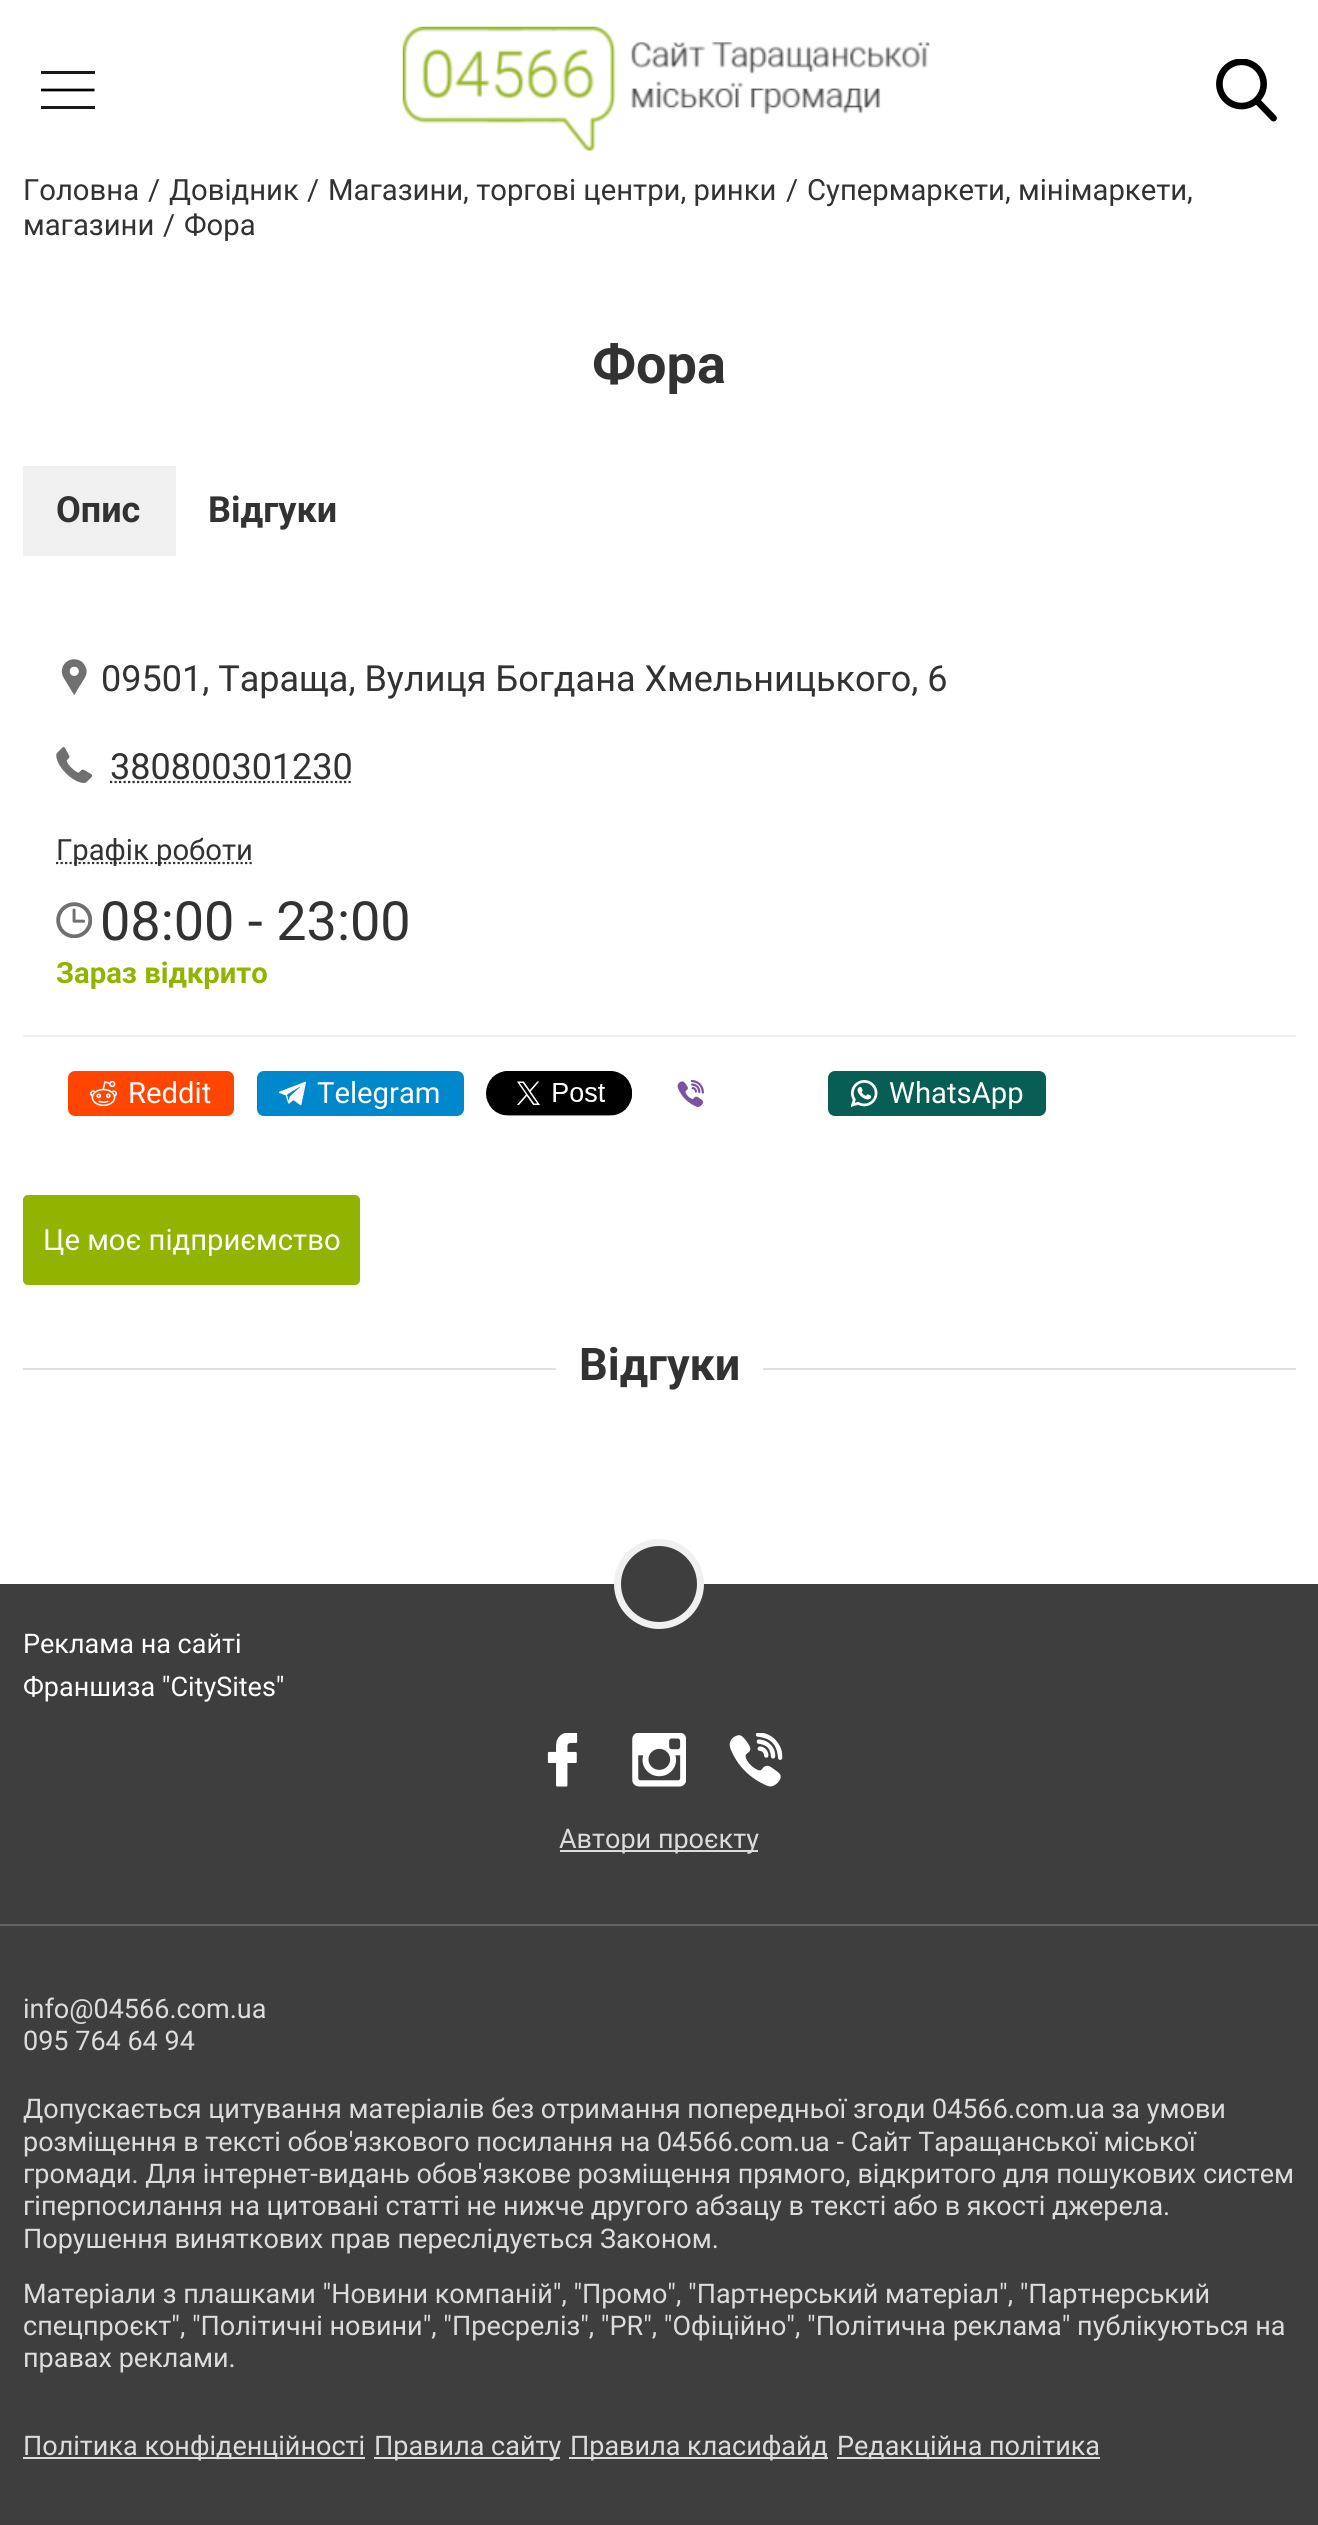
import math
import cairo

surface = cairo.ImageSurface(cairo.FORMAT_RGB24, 1318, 2525)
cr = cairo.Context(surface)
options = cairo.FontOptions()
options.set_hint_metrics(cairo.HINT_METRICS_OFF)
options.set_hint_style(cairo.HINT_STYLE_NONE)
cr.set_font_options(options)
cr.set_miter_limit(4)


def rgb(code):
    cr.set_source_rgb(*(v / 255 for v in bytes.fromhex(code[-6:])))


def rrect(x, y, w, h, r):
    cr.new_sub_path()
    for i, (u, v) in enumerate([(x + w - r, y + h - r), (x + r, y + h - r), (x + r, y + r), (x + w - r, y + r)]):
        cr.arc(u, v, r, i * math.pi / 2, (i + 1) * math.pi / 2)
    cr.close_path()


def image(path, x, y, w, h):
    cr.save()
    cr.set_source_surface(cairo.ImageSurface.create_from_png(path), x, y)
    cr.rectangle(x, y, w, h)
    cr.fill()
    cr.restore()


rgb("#ffffff")
cr.paint()
rgb("#1a1a1a")
cr.rectangle(41, 71, 54, 3)
cr.fill()
cr.save()
cr.rectangle(41, 63, 54, 54)
cr.clip()
cr.new_path()
cr.move_to(40.5, 90)
cr.line_to(94.5, 90)
rgb("#000000")
cr.set_line_width(2.7)
cr.stroke()
cr.restore()
cr.rectangle(41, 106, 54, 3)
cr.fill()
image("img/1.png", 402, 26, 528, 125)
image("img/2.png", 1216, 59, 61, 63)
rgb("#f0f0f0")
cr.rectangle(23, 466, 153, 90)
cr.fill()
image("img/3.png", 61, 659, 26, 36)
image("img/4.png", 56, 747, 36, 36)
cr.new_path()
cr.move_to(110, 782)
cr.line_to(353, 782)
rgb("#323232")
cr.set_line_width(2.2)
cr.set_dash([2.25, 2.25])
cr.stroke()
cr.new_path()
cr.move_to(56, 863)
cr.line_to(253, 863)
cr.stroke()
image("img/5.png", 56, 902, 36, 36)
rgb("#f0f0f0")
cr.rectangle(23, 1035, 1273, 2)
cr.fill()
rgb("#ff4500")
rrect(68, 1071, 166, 45, 7)
cr.fill()
image("img/6.png", 90, 1080, 27, 27)
rgb("#0088cc")
rrect(257, 1071, 207, 45, 7)
cr.fill()
image("img/7.png", 279, 1081, 27, 25)
image("img/8.png", 486, 1071, 146, 45)
image("img/9.png", 677, 1080, 27, 27)
rgb("#075e54")
rrect(828, 1071, 218, 45, 7)
cr.fill()
image("img/10.png", 851, 1080, 27, 27)
rgb("#90b400")
rrect(23, 1195, 337, 90, 5)
cr.fill()
for x, y, w, h, color in [
    (23, 1368, 533, 2, "#e0e0e0"),
    (763, 1368, 533, 2, "#e0e0e0"),
    (0, 1584, 1318, 941, "#3f3e3e"),
]:
    rgb(color)
    cr.rectangle(x, y, w, h)
    cr.fill()
cr.arc(659, 1584, 41.5, 0, 2 * math.pi)
cr.fill_preserve()
rgb("#f0f0f0")
cr.set_line_width(7)
cr.set_dash([])
cr.stroke()
image("img/11.png", 547, 1733, 31, 54)
image("img/12.png", 632, 1733, 54, 54)
image("img/13.png", 729, 1733, 54, 54)
for x, y, w, h, color in [
    (560, 1850, 198, 2, "#dcdcdc"),
    (0, 1924, 1318, 2, "#636262"),
    (23, 2457, 342, 2, "#dcdcdc"),
    (374, 2457, 186, 2, "#dcdcdc"),
    (569, 2457, 259, 2, "#dcdcdc"),
    (837, 2457, 263, 2, "#dcdcdc"),
]:
    rgb(color)
    cr.rectangle(x, y, w, h)
    cr.fill()
cr.select_font_face("Roboto")
cr.set_font_size(29.25)
rgb("#323232")
for x, y, s in [
    (23, 200, "Головна"),
    (148, 200, "/"),
    (169, 200, "Довідник"),
    (307, 200, "/"),
    (328, 200, "Магазини, торгові центри, ринки"),
    (786, 200, "/"),
    (807, 200, "Супермаркети, мінімаркети,"),
    (23, 235, "магазини"),
    (163, 235, "/"),
    (184, 235, "Фора"),
]:
    cr.move_to(x, y)
    cr.show_text(s)
cr.select_font_face("Roboto", cairo.FONT_SLANT_NORMAL, cairo.FONT_WEIGHT_BOLD)
cr.set_font_size(54)
cr.move_to(592, 383)
cr.show_text("Фора")
cr.set_font_size(36)
cr.move_to(56, 522)
cr.show_text("Опис")
cr.move_to(208, 522)
cr.show_text("Відгуки")
cr.select_font_face("Roboto")
cr.move_to(101, 691)
cr.show_text("09501, Тараща, Вулиця Богдана Хмельницького, 6")
cr.move_to(110, 779)
cr.show_text("380800301230")
cr.set_font_size(29.25)
cr.move_to(56, 860)
cr.show_text("Графік роботи")
cr.set_font_size(54)
cr.move_to(100, 940)
cr.show_text("08:00 - 23:00")
cr.select_font_face("Roboto", cairo.FONT_SLANT_NORMAL, cairo.FONT_WEIGHT_BOLD)
cr.set_font_size(29.25)
rgb("#90b400")
cr.move_to(56, 983)
cr.show_text("Зараз відкрито")
cr.select_font_face("Roboto")
rgb("#ffffff")
for x, y, s in [
    (128, 1103, "Reddit"),
    (317, 1103, "Telegram"),
    (889, 1103, "WhatsApp"),
    (43, 1250, "Це моє підприємство"),
]:
    cr.move_to(x, y)
    cr.show_text(s)
cr.select_font_face("Roboto", cairo.FONT_SLANT_NORMAL, cairo.FONT_WEIGHT_BOLD)
cr.set_font_size(45)
rgb("#323232")
cr.move_to(579, 1380)
cr.show_text("Відгуки")
cr.select_font_face("Roboto")
cr.set_font_size(27)
rgb("#ffffff")
cr.move_to(23, 1653)
cr.show_text("Реклама на сайті")
cr.move_to(23, 1696)
cr.show_text("Франшиза \"CitySites\"")
rgb("#dcdcdc")
for x, y, s in [
    (559, 1848, "Автори проєкту"),
    (23, 2018, "info@04566.com.ua"),
    (23, 2050, "095 764 64 94"),
    (23, 2118, "Допускається цитування матеріалів без отримання попередньої згоди 04566.com.ua за умови"),
    (23, 2151, "розміщення в тексті обов'язкового посилання на 04566.com.ua - Cайт Таращанської міської"),
    (23, 2183, "громади. Для інтернет-видань обов'язкове розміщення прямого, відкритого для пошукових систем"),
    (23, 2215, "гіперпосилання на цитовані статті не нижче другого абзацу в тексті або в якості джерела."),
    (23, 2248, "Порушення виняткових прав переслідується Законом."),
    (23, 2303, "Матеріали з плашками \"Новини компаній\", \"Промо\", \"Партнерський матеріал\", \"Партнерський"),
    (23, 2335, "спецпроєкт\", \"Політичні новини\", \"Пресреліз\", \"PR\", \"Офіційно\", \"Політична реклама\" публікуються на"),
    (23, 2367, "правах реклами."),
    (23, 2455, "Політика конфіденційності"),
    (374, 2455, "Правила сайту"),
    (570, 2455, "Правила класифайд"),
    (837, 2455, "Редакційна політика"),
]:
    cr.move_to(x, y)
    cr.show_text(s)
surface.write_to_png("page.png")
